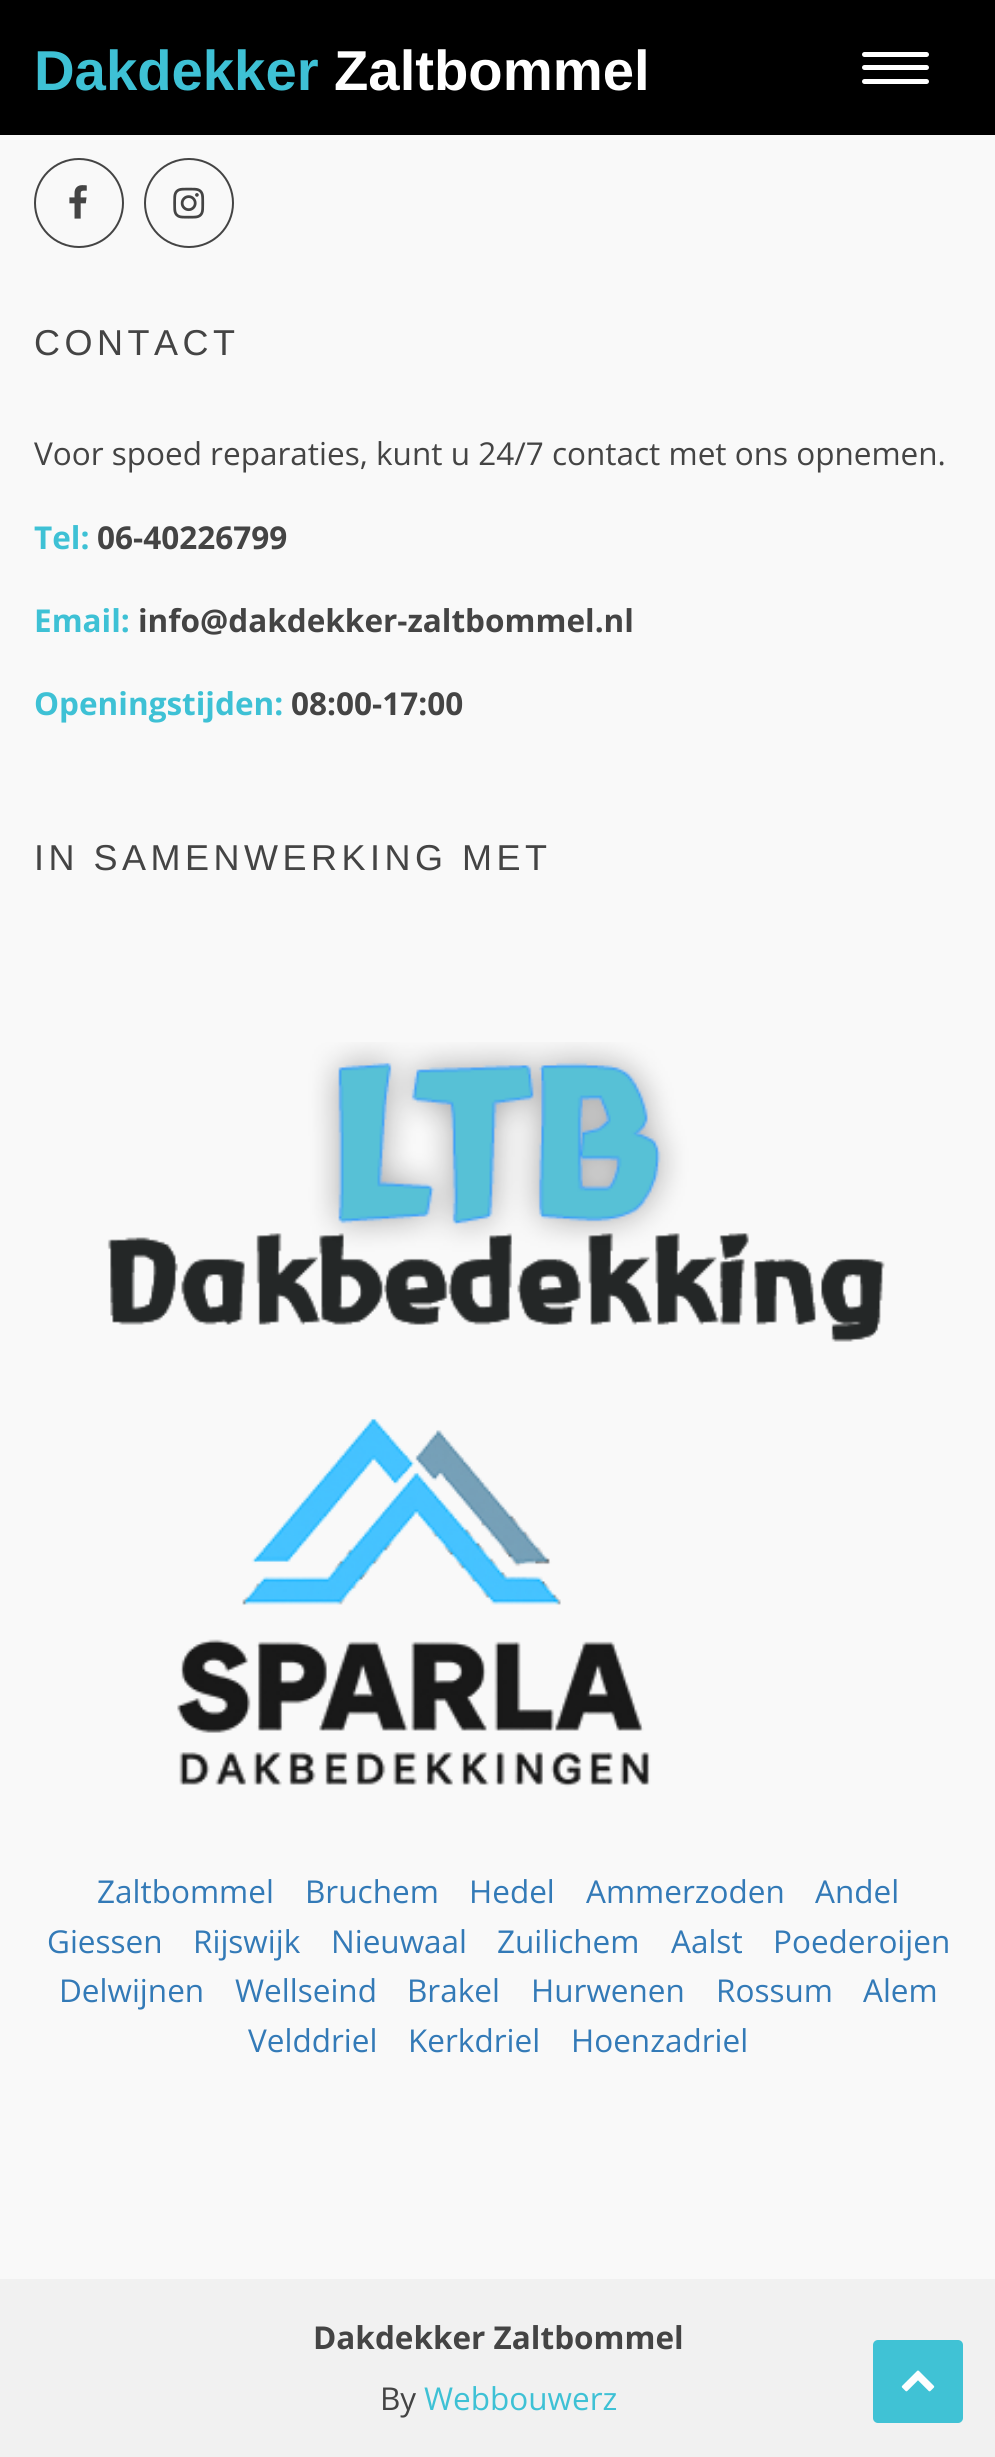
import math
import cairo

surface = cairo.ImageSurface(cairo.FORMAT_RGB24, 995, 2457)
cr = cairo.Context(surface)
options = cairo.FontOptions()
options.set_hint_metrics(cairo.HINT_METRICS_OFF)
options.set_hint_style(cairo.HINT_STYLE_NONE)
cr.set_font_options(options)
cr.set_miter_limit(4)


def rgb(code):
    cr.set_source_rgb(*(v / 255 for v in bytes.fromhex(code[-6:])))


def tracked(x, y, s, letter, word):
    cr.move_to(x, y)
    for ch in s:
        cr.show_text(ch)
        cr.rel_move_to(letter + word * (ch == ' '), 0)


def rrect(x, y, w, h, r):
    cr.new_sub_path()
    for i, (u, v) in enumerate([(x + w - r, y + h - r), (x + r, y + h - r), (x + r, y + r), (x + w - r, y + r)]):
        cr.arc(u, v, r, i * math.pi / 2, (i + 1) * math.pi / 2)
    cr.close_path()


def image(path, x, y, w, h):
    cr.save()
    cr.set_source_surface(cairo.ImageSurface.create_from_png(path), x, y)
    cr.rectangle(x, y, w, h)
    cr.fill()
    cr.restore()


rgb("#f9f9f9")
cr.paint()
rgb("#000000")
cr.rectangle(0, 0, 995, 135)
cr.fill()
rgb("#ffffff")
rrect(862, 52, 67, 5, 2.5)
cr.fill()
rrect(862, 65, 67, 5, 2.5)
cr.fill()
rrect(862, 79, 67, 5, 2.5)
cr.fill()
cr.arc(79, 203, 44, 0, 2 * math.pi)
rgb("#444444")
cr.stroke()
image("img/1.png", 69, 185, 18, 34)
cr.arc(189, 203, 44, 0, 2 * math.pi)
cr.stroke()
image("img/2.png", 173, 187, 32, 32)
image("img/3.png", 107, 1042, 778, 300)
image("img/4.png", 177, 1417, 474, 370)
rgb("#f1f1f1")
cr.rectangle(0, 2279, 995, 178)
cr.fill()
rgb("#40c2d5")
rrect(873, 2340, 90, 83, 5)
cr.fill()
image("img/5.png", 901, 2370, 34, 22)
cr.select_font_face("Liberation Sans", cairo.FONT_SLANT_NORMAL, cairo.FONT_WEIGHT_BOLD)
cr.set_font_size(56.25)
rgb("#3ec1d5")
cr.move_to(34, 90)
cr.show_text("Dakdekker")
rgb("#ffffff")
cr.move_to(334, 90)
cr.show_text("Zaltbommel")
cr.select_font_face("Liberation Sans")
cr.set_font_size(36)
rgb("#444444")
tracked(34, 355, "CONTACT", 4.5, 0)
cr.select_font_face("Open Sans")
cr.set_font_size(31.5)
cr.move_to(34, 465)
cr.show_text("Voor spoed reparaties, kunt u 24/7 contact met ons opnemen.")
cr.select_font_face("Open Sans", cairo.FONT_SLANT_NORMAL, cairo.FONT_WEIGHT_BOLD)
rgb("#3ec1d5")
cr.move_to(34, 549)
cr.show_text("Tel:")
rgb("#444444")
cr.move_to(97, 549)
cr.show_text("06-40226799")
rgb("#3ec1d5")
cr.move_to(34, 632)
cr.show_text("Email:")
rgb("#444444")
cr.move_to(138, 632)
cr.show_text("info@dakdekker-zaltbommel.nl")
rgb("#3ec1d5")
cr.move_to(34, 715)
cr.show_text("Openingstijden:")
rgb("#444444")
cr.move_to(291, 715)
cr.show_text("08:00-17:00")
cr.select_font_face("Liberation Sans")
cr.set_font_size(36)
tracked(34, 870, "IN SAMENWERKING MET", 4.5, 0)
cr.select_font_face("Open Sans")
cr.set_font_size(31.5)
rgb("#337ab7")
for x, y, s in [
    (97, 1903, "Zaltbommel"),
    (305, 1903, "Bruchem"),
    (469, 1903, "Hedel"),
    (586, 1903, "Ammerzoden"),
    (815, 1903, "Andel"),
    (47, 1953, "Giessen"),
    (193, 1953, "Rijswijk"),
    (331, 1953, "Nieuwaal"),
    (497, 1953, "Zuilichem"),
    (671, 1953, "Aalst"),
    (773, 1953, "Poederoijen"),
    (59, 2002, "Delwijnen"),
    (235, 2002, "Wellseind"),
    (407, 2002, "Brakel"),
    (531, 2002, "Hurwenen"),
    (716, 2002, "Rossum"),
    (863, 2002, "Alem"),
    (248, 2052, "Velddriel"),
    (408, 2052, "Kerkdriel"),
    (571, 2052, "Hoenzadriel"),
]:
    cr.move_to(x, y)
    cr.show_text(s)
cr.select_font_face("Open Sans", cairo.FONT_SLANT_NORMAL, cairo.FONT_WEIGHT_BOLD)
rgb("#444444")
cr.move_to(313, 2349)
cr.show_text("Dakdekker Zaltbommel")
cr.select_font_face("Open Sans")
cr.move_to(380, 2410)
cr.show_text("By")
rgb("#3ec1d5")
cr.move_to(424, 2410)
cr.show_text("Webbouwerz")
surface.write_to_png("page.png")
